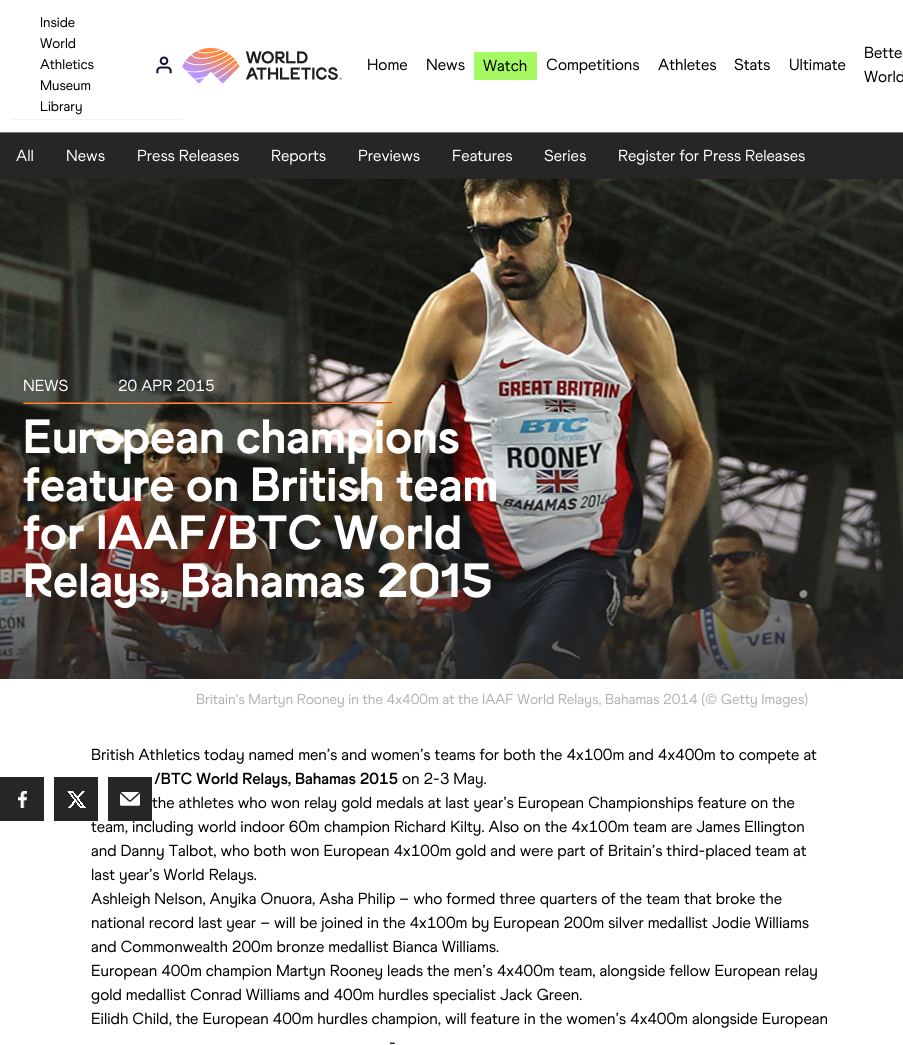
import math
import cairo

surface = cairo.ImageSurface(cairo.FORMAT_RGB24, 903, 1045)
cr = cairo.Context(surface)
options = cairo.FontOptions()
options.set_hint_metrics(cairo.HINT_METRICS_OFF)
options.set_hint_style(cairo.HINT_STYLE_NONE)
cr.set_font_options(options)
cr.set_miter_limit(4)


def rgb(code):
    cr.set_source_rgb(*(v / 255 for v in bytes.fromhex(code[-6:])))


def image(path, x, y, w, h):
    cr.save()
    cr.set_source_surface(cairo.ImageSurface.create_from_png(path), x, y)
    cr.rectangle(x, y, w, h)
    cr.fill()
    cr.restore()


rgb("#ffffff")
cr.paint()
rgb("#f0f0f0")
cr.rectangle(12, 119, 170, 1)
cr.fill()
image("img/1.png", 156, 56, 16, 18)
image("img/2.png", 182, 48, 160, 36)
for x, y, w, h, color in [
    (474, 52, 63, 28, "#a5fa64"),
    (0, 133, 903, 46, "#262626"),
    (0, 132, 903, 1, "#818181"),
]:
    rgb(color)
    cr.rectangle(x, y, w, h)
    cr.fill()
image("img/3.png", 0, 179, 903, 500)
for x, y, w, h, color in [
    (23, 402, 370, 1, "#aa5a28"),
    (392, 402, 1, 2, "#ff873c"),
    (23, 403, 370, 1, "#ff873c"),
    (23, 402, 1, 2, "#aa5a28"),
    (0, 777, 44, 44, "#262626"),
]:
    rgb(color)
    cr.rectangle(x, y, w, h)
    cr.fill()
image("img/4.png", 18, 791, 9, 17)
cr.select_font_face("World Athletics")
cr.set_font_size(14)
rgb("#000000")
for x, y, s in [
    (40, 27, "Inside"),
    (40, 48, "World"),
    (40, 69, "Athletics"),
    (40, 90, "Museum"),
    (40, 111, "Library"),
]:
    cr.move_to(x, y)
    cr.show_text(s)
cr.set_font_size(16)
for x, y, s in [
    (367, 70, "Home"),
    (426, 70, "News"),
    (483, 71, "Watch"),
    (546, 70, "Competitions"),
    (658, 70, "Athletes"),
    (734, 70, "Stats"),
    (789, 70, "Ultimate"),
    (864, 58, "Bette"),
    (864, 82, "World"),
]:
    cr.move_to(x, y)
    cr.show_text(s)
rgb("#ffffff")
for x, y, s in [
    (16, 161, "All"),
    (66, 161, "News"),
    (137, 161, "Press Releases"),
    (271, 161, "Reports"),
    (358, 161, "Previews"),
    (452, 161, "Features"),
    (544, 161, "Series"),
    (618, 161, "Register for Press Releases"),
    (23, 391, "NEWS"),
    (118, 391, "20 APR 2015"),
]:
    cr.move_to(x, y)
    cr.show_text(s)
cr.select_font_face("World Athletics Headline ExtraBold")
cr.set_font_size(48)
for x, y, s in [
    (23, 453, "European champions"),
    (23, 501, "feature on British team"),
    (23, 549, "for IAAF/BTC World"),
    (23, 597, "Relays, Bahamas 2015"),
]:
    cr.move_to(x, y)
    cr.show_text(s)
cr.select_font_face("World Athletics")
cr.set_font_size(14.4)
rgb("#b2b2b2")
cr.move_to(196, 704)
cr.show_text("Britain's Martyn Rooney in the 4x400m at the IAAF World Relays, Bahamas 2014 (© Getty Images)")
cr.set_font_size(16)
rgb("#000000")
cr.move_to(91, 760)
cr.show_text("British Athletics today named men’s and women’s teams for both the 4x100m and 4x400m to compete at")
cr.select_font_face("World Athletics", cairo.FONT_SLANT_NORMAL, cairo.FONT_WEIGHT_BOLD)
cr.move_to(154, 784)
cr.show_text("/BTC World Relays, Bahamas 2015")
cr.select_font_face("World Athletics")
for x, y, s in [
    (402, 784, "on 2-3 May."),
    (152, 808, "the athletes who won relay gold medals at last year’s European Championships feature on the"),
    (91, 832, "team, including world indoor 60m champion Richard Kilty. Also on the 4x100m team are James Ellington"),
]:
    cr.move_to(x, y)
    cr.show_text(s)
rgb("#262626")
cr.rectangle(108, 777, 44, 44)
cr.fill()
image("img/6.png", 120, 792, 20, 14)
cr.rectangle(54, 777, 44, 44)
cr.fill()
image("img/5.png", 67, 791, 19, 17)
rgb("#000000")
for x, y, s in [
    (91, 856, "and Danny Talbot, who both won European 4x100m gold and were part of Britain’s third-placed team at"),
    (91, 880, "last year’s World Relays."),
    (91, 904, "Ashleigh Nelson, Anyika Onuora, Asha Philip – who formed three quarters of the team that broke the"),
    (91, 928, "national record last year – will be joined in the 4x100m by European 200m silver medallist Jodie Williams"),
    (91, 952, "and Commonwealth 200m bronze medallist Bianca Williams."),
    (91, 976, "European 400m champion Martyn Rooney leads the men’s 4x400m team, alongside fellow European relay"),
    (91, 1000, "gold medallist Conrad Williams and 400m hurdles specialist Jack Green."),
    (91, 1024, "Eilidh Child, the European 400m hurdles champion, will feature in the women’s 4x400m alongside European"),
    (389, 1048, "-"),
]:
    cr.move_to(x, y)
    cr.show_text(s)
surface.write_to_png("page.png")
